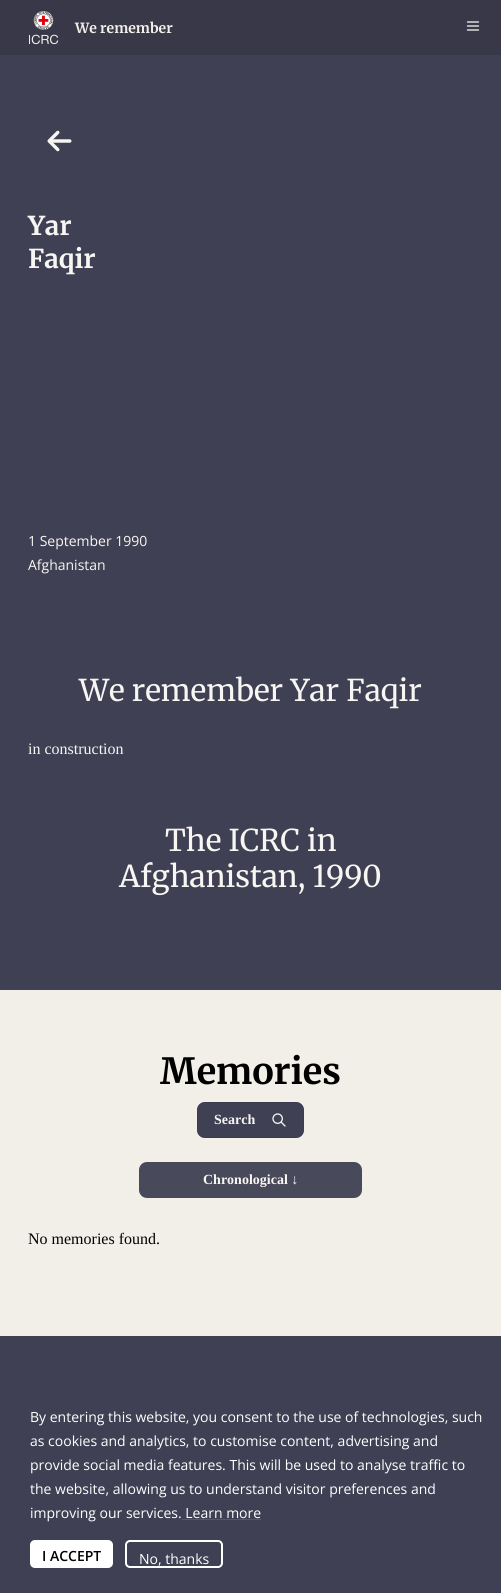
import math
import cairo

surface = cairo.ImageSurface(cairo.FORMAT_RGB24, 501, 1593)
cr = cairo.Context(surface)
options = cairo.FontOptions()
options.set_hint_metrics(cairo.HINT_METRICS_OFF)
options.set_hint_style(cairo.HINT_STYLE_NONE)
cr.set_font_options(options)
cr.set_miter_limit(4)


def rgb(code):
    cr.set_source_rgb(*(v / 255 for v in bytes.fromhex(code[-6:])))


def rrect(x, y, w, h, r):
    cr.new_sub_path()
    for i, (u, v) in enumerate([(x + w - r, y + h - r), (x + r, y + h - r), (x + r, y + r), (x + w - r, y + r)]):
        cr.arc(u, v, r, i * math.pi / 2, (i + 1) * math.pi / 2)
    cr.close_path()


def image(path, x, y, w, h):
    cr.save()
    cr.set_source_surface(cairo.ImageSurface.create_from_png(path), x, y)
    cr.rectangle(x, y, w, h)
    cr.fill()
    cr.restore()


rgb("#383849")
cr.paint()
image("img/1.png", 29, 10, 30, 35)
cr.new_path()
cr.move_to(467.5, 22)
cr.line_to(478.5, 22)
cr.move_to(467.5, 26)
cr.line_to(478.5, 26)
cr.move_to(467.5, 30)
cr.line_to(478.5, 30)
rgb("#f2efe8")
cr.set_line_width(1.3)
cr.set_line_cap(cairo.LINE_CAP_ROUND)
cr.set_line_join(cairo.LINE_JOIN_ROUND)
cr.stroke()
rgb("#404054")
cr.rectangle(0, 55, 501, 935)
cr.fill()
image("img/2.png", 47, 130, 25, 22)
rgb("#f2efe8")
cr.rectangle(0, 990, 501, 346)
cr.fill()
rgb("#404054")
rrect(197, 1102, 107, 36, 8)
cr.fill()
rrect(197.5, 1102.5, 106, 35, 7.5)
cr.set_source_rgba(0.22, 0.22, 0.286, 0.4)
cr.set_line_width(1)
cr.set_line_cap(cairo.LINE_CAP_BUTT)
cr.set_line_join(cairo.LINE_JOIN_MITER)
cr.stroke()
image("img/3.png", 272, 1113, 14, 14)
rgb("#404054")
rrect(139, 1162, 223, 36, 8)
cr.fill()
cr.set_source_rgba(0.973, 0.965, 0.949, 0.05)
cr.rectangle(139, 1162, 223, 36)
cr.fill()
rgb("#404054")
cr.rectangle(0, 1336, 501, 257)
cr.fill()
rgb("#ffffff")
rrect(30, 1540, 83, 28, 5)
cr.fill()
rrect(126, 1541, 96, 26, 4)
cr.set_line_width(2)
cr.stroke()
cr.select_font_face("Merriweather", cairo.FONT_SLANT_NORMAL, cairo.FONT_WEIGHT_BOLD)
cr.set_font_size(14)
rgb("#f2efe8")
cr.move_to(75, 33)
cr.show_text("We remember")
cr.set_font_size(26)
rgb("#f8f6f2")
cr.move_to(28, 235)
cr.show_text("Yar")
cr.move_to(28, 268)
cr.show_text("Faqir")
cr.select_font_face("Open Sans")
cr.set_font_size(14)
cr.move_to(28, 546)
cr.show_text("1 September 1990")
cr.move_to(28, 570)
cr.show_text("Afghanistan")
cr.select_font_face("Merriweather")
cr.set_font_size(30)
cr.move_to(79, 701)
cr.show_text("We remember Yar Faqir")
cr.select_font_face("Liberation Serif")
cr.set_font_size(16)
cr.move_to(28, 754)
cr.show_text("in construction")
cr.select_font_face("Merriweather")
cr.set_font_size(30)
cr.move_to(165, 851)
cr.show_text("The ICRC in")
cr.move_to(119, 887)
cr.show_text("Afghanistan, 1990")
cr.select_font_face("Merriweather", cairo.FONT_SLANT_NORMAL, cairo.FONT_WEIGHT_BOLD)
cr.set_font_size(36)
rgb("#000000")
cr.move_to(160, 1084)
cr.show_text("Memories")
cr.select_font_face("Liberation Serif", cairo.FONT_SLANT_NORMAL, cairo.FONT_WEIGHT_BOLD)
cr.set_font_size(14)
rgb("#f8f6f2")
cr.move_to(214, 1124)
cr.show_text("Search")
cr.move_to(203, 1184)
cr.show_text("Chronological ↓")
cr.select_font_face("Liberation Serif")
cr.set_font_size(16)
rgb("#000000")
cr.move_to(28, 1244)
cr.show_text("No memories found.")
cr.select_font_face("Open Sans")
cr.set_font_size(14)
rgb("#ffffff")
for x, y, s in [
    (30, 1422, "By entering this website, you consent to the use of technologies, such"),
    (30, 1446, "as cookies and analytics, to customise content, advertising and"),
    (30, 1470, "provide social media features. This will be used to analyse traffic to"),
    (30, 1494, "the website, allowing us to understand visitor preferences and"),
    (30, 1518, "improving our services. Learn more"),
]:
    cr.move_to(x, y)
    cr.show_text(s)
rgb("#595965")
cr.rectangle(182, 1519, 79, 1)
cr.fill()
cr.select_font_face("Open Sans SemiBold")
rgb("#000000")
cr.move_to(42, 1561)
cr.show_text("I ACCEPT")
cr.select_font_face("Open Sans")
rgb("#ffffff")
cr.move_to(139, 1564)
cr.show_text("No, thanks")
surface.write_to_png("page.png")
